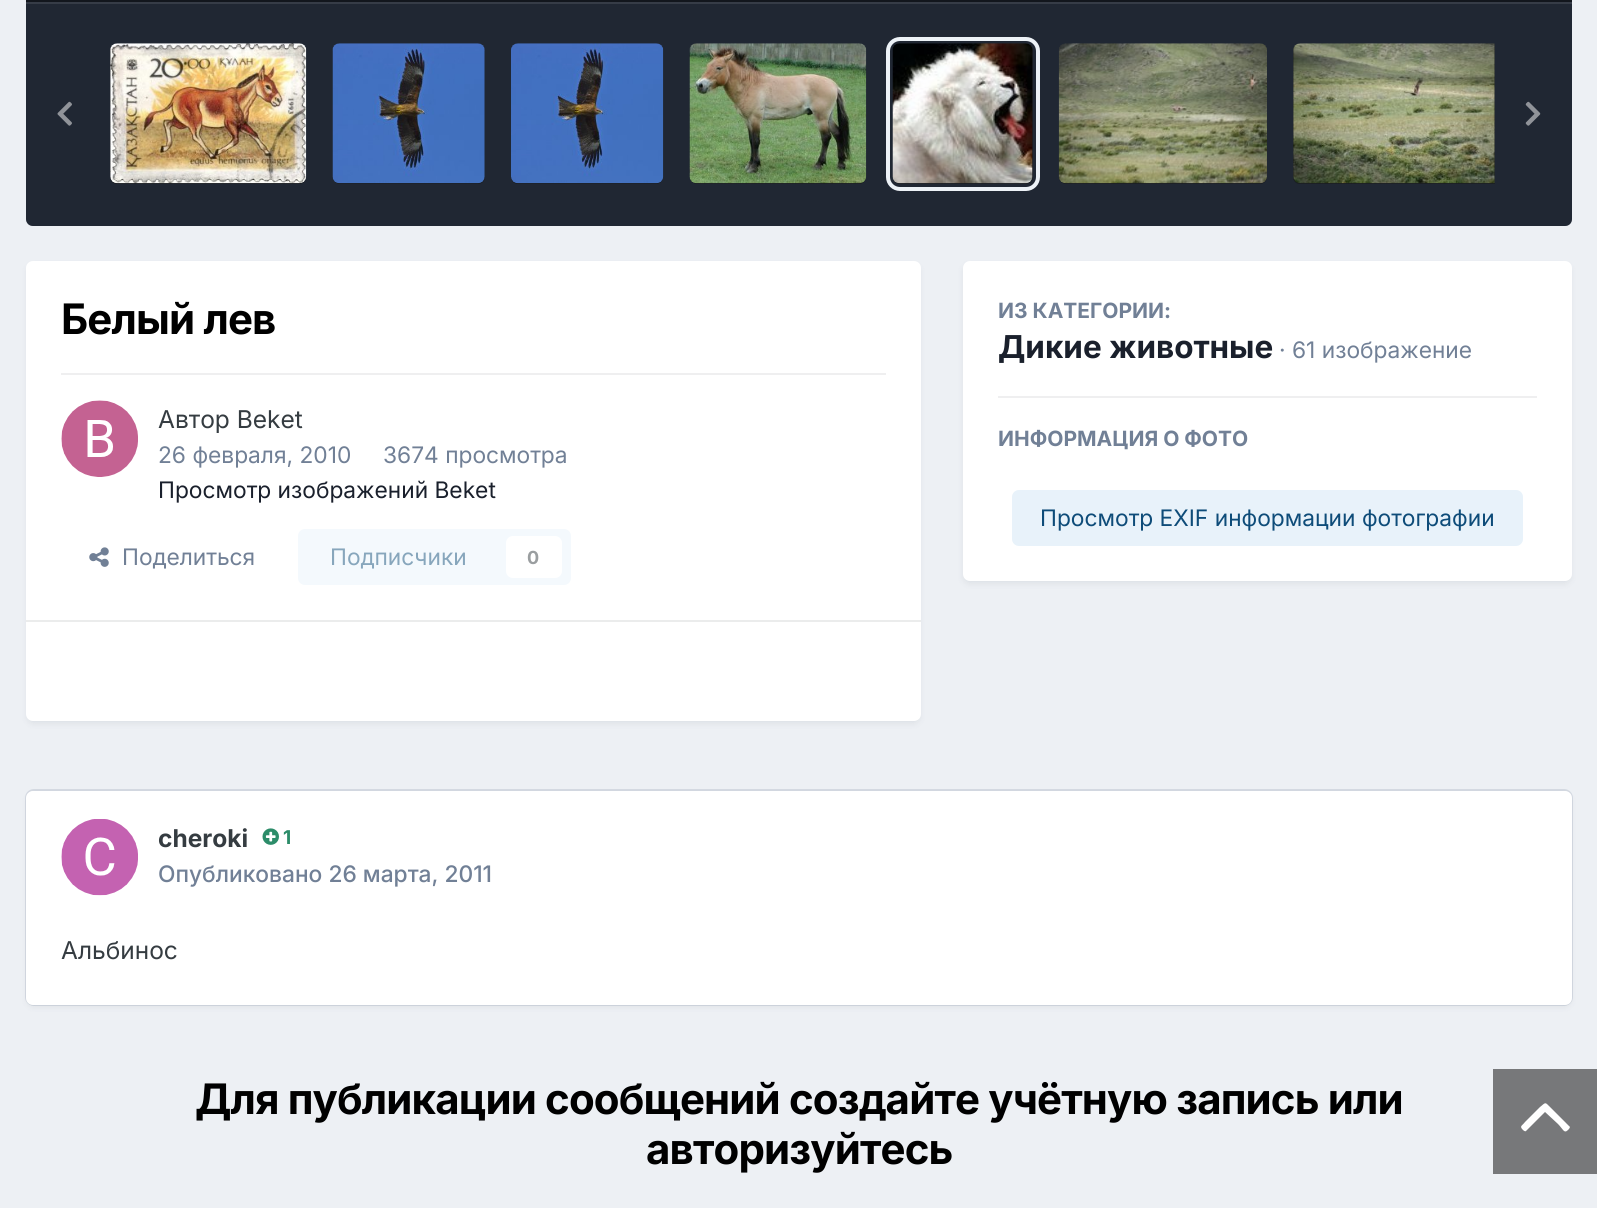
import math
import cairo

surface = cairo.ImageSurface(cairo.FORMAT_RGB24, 1597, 1208)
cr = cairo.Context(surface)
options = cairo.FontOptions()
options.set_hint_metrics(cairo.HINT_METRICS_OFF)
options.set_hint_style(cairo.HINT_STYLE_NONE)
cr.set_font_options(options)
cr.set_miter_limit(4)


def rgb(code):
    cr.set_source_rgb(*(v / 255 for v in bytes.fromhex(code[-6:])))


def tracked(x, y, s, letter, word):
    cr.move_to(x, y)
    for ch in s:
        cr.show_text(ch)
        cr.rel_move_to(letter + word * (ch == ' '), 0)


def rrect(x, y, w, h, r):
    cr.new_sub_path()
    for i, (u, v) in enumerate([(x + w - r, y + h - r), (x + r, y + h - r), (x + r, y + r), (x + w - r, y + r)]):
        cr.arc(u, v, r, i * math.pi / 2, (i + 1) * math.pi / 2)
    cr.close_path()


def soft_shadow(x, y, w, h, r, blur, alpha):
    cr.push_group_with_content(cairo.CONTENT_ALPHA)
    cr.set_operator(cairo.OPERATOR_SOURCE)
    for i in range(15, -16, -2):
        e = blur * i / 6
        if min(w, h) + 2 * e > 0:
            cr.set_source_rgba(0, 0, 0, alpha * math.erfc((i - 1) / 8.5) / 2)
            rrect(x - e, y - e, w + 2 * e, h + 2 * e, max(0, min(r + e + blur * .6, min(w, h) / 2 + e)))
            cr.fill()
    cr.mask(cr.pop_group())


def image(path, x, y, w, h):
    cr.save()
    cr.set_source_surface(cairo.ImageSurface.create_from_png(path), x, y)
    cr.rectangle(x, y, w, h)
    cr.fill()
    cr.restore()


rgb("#edf0f4")
cr.paint()
rgb("#12161d")
cr.rectangle(26, 0, 1546, 2)
cr.fill()
rgb("#2d3748")
cr.new_path()
cr.move_to(26, 2)
cr.line_to(1572, 2)
cr.line_to(1572, 219)
cr.curve_to(1572, 223, 1569, 226, 1565, 226)
cr.line_to(33, 226)
cr.curve_to(29, 226, 26, 223, 26, 219)
cr.close_path()
cr.fill()
cr.set_source_rgba(0, 0, 0, 0.3)
cr.new_path()
cr.move_to(26, 2)
cr.line_to(1572, 2)
cr.line_to(1572, 219)
cr.curve_to(1572, 223, 1569, 226, 1565, 226)
cr.line_to(33, 226)
cr.curve_to(29, 226, 26, 223, 26, 219)
cr.close_path()
cr.fill()
rgb("#363c47")
cr.rectangle(26, 2, 1546, 2)
cr.fill()
rgb("#141414")
rrect(110, 44, 196, 140, 7)
cr.fill()
cr.set_source_rgba(0.176, 0.216, 0.282, 0.3)
rrect(110, 44, 196, 140, 7)
cr.fill()
image("img/1.png", 110, 43, 197, 141)
rgb("#141414")
rrect(333, 44, 152, 140, 7)
cr.fill()
cr.set_source_rgba(0.176, 0.216, 0.282, 0.3)
rrect(333, 44, 152, 140, 7)
cr.fill()
image("img/2.png", 332, 43, 153, 141)
rgb("#141414")
rrect(511, 44, 152, 140, 7)
cr.fill()
cr.set_source_rgba(0.176, 0.216, 0.282, 0.3)
rrect(511, 44, 152, 140, 7)
cr.fill()
image("img/3.png", 511, 43, 153, 141)
rgb("#141414")
rrect(690, 44, 176, 140, 7)
cr.fill()
cr.set_source_rgba(0.176, 0.216, 0.282, 0.3)
rrect(690, 44, 176, 140, 7)
cr.fill()
image("img/4.png", 689, 43, 178, 141)
rgb("#141414")
rrect(893, 44, 140, 140, 7)
cr.fill()
cr.set_source_rgba(0.176, 0.216, 0.282, 0.3)
rrect(893, 44, 140, 140, 7)
cr.fill()
rrect(888, 39, 150, 150, 12)
rgb("#edf2f7")
cr.set_line_width(4)
cr.stroke()
image("img/5.png", 892, 43, 141, 141)
rgb("#141414")
rrect(1059, 44, 208, 140, 7)
cr.fill()
cr.set_source_rgba(0.176, 0.216, 0.282, 0.3)
rrect(1059, 44, 208, 140, 7)
cr.fill()
image("img/6.png", 1058, 43, 209, 141)
rgb("#141414")
cr.new_path()
cr.move_to(1300, 44)
cr.line_to(1495, 44)
cr.line_to(1495, 184)
cr.line_to(1300, 184)
cr.curve_to(1296, 184, 1293, 181, 1293, 177)
cr.line_to(1293, 51)
cr.curve_to(1293, 47, 1296, 44, 1300, 44)
cr.close_path()
cr.fill()
cr.set_source_rgba(0.176, 0.216, 0.282, 0.3)
cr.new_path()
cr.move_to(1300, 44)
cr.line_to(1495, 44)
cr.line_to(1495, 184)
cr.line_to(1300, 184)
cr.curve_to(1296, 184, 1293, 181, 1293, 177)
cr.line_to(1293, 51)
cr.curve_to(1293, 47, 1296, 44, 1300, 44)
cr.close_path()
cr.fill()
image("img/7.png", 1293, 43, 202, 141)
image("img/8.png", 57, 101, 15, 25)
image("img/9.png", 1525, 101, 16, 25)
rgb("#2d3748")
soft_shadow(28, 266, 891, 457, 5, 3.5, 0.1)
rgb("#ffffff")
rrect(26, 261, 895, 460, 7)
cr.fill()
rgb("#efeff0")
cr.rectangle(61, 373, 825, 2)
cr.fill()
image("img/10.png", 61, 400, 77, 77)
image("img/11.png", 89, 547, 20, 20)
rgb("#f4f9fd")
rrect(298, 529, 273, 56, 7)
cr.fill()
rgb("#ffffff")
rrect(506, 536, 56, 42, 7)
cr.fill()
rgb("#ebecec")
cr.rectangle(26, 620, 895, 2)
cr.fill()
rgb("#2d3748")
soft_shadow(964, 266, 606, 317, 5, 3.5, 0.1)
rgb("#ffffff")
rrect(963, 261, 609, 320, 7)
cr.fill()
rgb("#efeff0")
cr.rectangle(998, 396, 539, 2)
cr.fill()
rgb("#e8f2fa")
rrect(1012, 490, 511, 56, 7)
cr.fill()
rgb("#2d3748")
soft_shadow(28, 796, 1542, 210, 5, 3.5, 0.1)
rrect(26, 790, 1546, 215, 8)
cr.set_source_rgba(0.443, 0.502, 0.588, 0.2)
cr.set_line_width(2)
cr.stroke()
rgb("#ffffff")
rrect(26, 791, 1546, 214, 7)
cr.fill()
image("img/12.png", 61, 819, 77, 77)
image("img/13.png", 262, 828, 17, 17)
rgb("#77787a")
cr.rectangle(1493, 1069, 104, 105)
cr.fill()
rgb("#ffffff")
cr.new_path()
cr.move_to(1569, 1126)
cr.curve_to(1571, 1127, 1569, 1129, 1568, 1130)
cr.curve_to(1564, 1134, 1563, 1129, 1558, 1124)
cr.line_to(1545, 1112)
cr.line_to(1526, 1131)
cr.curve_to(1525, 1132, 1523, 1130, 1523, 1130)
cr.curve_to(1519, 1126, 1522, 1126, 1525, 1122)
cr.line_to(1540, 1107)
cr.curve_to(1546, 1102, 1545, 1102, 1550, 1107)
cr.close_path()
cr.fill()
cr.select_font_face("Inter", cairo.FONT_SLANT_NORMAL, cairo.FONT_WEIGHT_BOLD)
cr.set_font_size(42)
rgb("#000000")
tracked(61, 334, "Белый лев", -0.85, 0)
cr.select_font_face("Inter")
cr.set_font_size(24.5)
rgb("#353c41")
cr.move_to(158, 428)
cr.show_text("Автор Beket")
cr.set_font_size(22.75)
rgb("#718096")
cr.move_to(158, 463)
cr.show_text("26 февраля, 2010")
cr.move_to(383, 463)
cr.show_text("3674 просмотра")
rgb("#1a202c")
cr.move_to(158, 498)
cr.show_text("Просмотр изображений Beket")
rgb("#718096")
cr.move_to(122, 565)
cr.show_text("Поделиться")
rgb("#87a6bc")
cr.move_to(330, 565)
cr.show_text("Подписчики")
cr.select_font_face("Inter", cairo.FONT_SLANT_NORMAL, cairo.FONT_WEIGHT_BOLD)
cr.set_font_size(18)
rgb("#9a9ea0")
cr.move_to(527, 564)
cr.show_text("0")
cr.set_font_size(21)
rgb("#718096")
cr.move_to(998, 318)
cr.show_text("ИЗ КАТЕГОРИИ:")
cr.set_font_size(31.5)
rgb("#1a202c")
cr.move_to(998, 358)
cr.show_text("Дикие животные")
cr.select_font_face("Inter")
cr.set_font_size(22.75)
rgb("#718096")
cr.move_to(1279, 358)
cr.show_text("· 61 изображение")
cr.select_font_face("Inter", cairo.FONT_SLANT_NORMAL, cairo.FONT_WEIGHT_BOLD)
cr.set_font_size(21)
cr.move_to(998, 446)
cr.show_text("ИНФОРМАЦИЯ О ФОТО")
cr.select_font_face("Inter")
cr.set_font_size(22.75)
rgb("#0e4c79")
cr.move_to(1040, 526)
cr.show_text("Просмотр EXIF информации фотографии")
cr.select_font_face("Inter", cairo.FONT_SLANT_NORMAL, cairo.FONT_WEIGHT_BOLD)
cr.set_font_size(24.5)
rgb("#353c41")
cr.move_to(158, 847)
cr.show_text("cheroki")
cr.set_font_size(19)
rgb("#2c8c69")
cr.move_to(283, 844)
cr.show_text("1")
cr.select_font_face("Inter Medium")
cr.set_font_size(22.75)
rgb("#718096")
cr.move_to(158, 882)
cr.show_text("Опубликовано 26 марта, 2011")
cr.select_font_face("Inter")
cr.set_font_size(24.5)
rgb("#353c41")
cr.move_to(61, 959)
cr.show_text("Альбинос")
cr.select_font_face("Inter", cairo.FONT_SLANT_NORMAL, cairo.FONT_WEIGHT_BOLD)
cr.set_font_size(42)
rgb("#000000")
tracked(195, 1114, "Для публикации сообщений создайте учётную запись или", -0.85, 0)
tracked(646, 1164, "авторизуйтесь", -0.85, 0)
surface.write_to_png("page.png")
